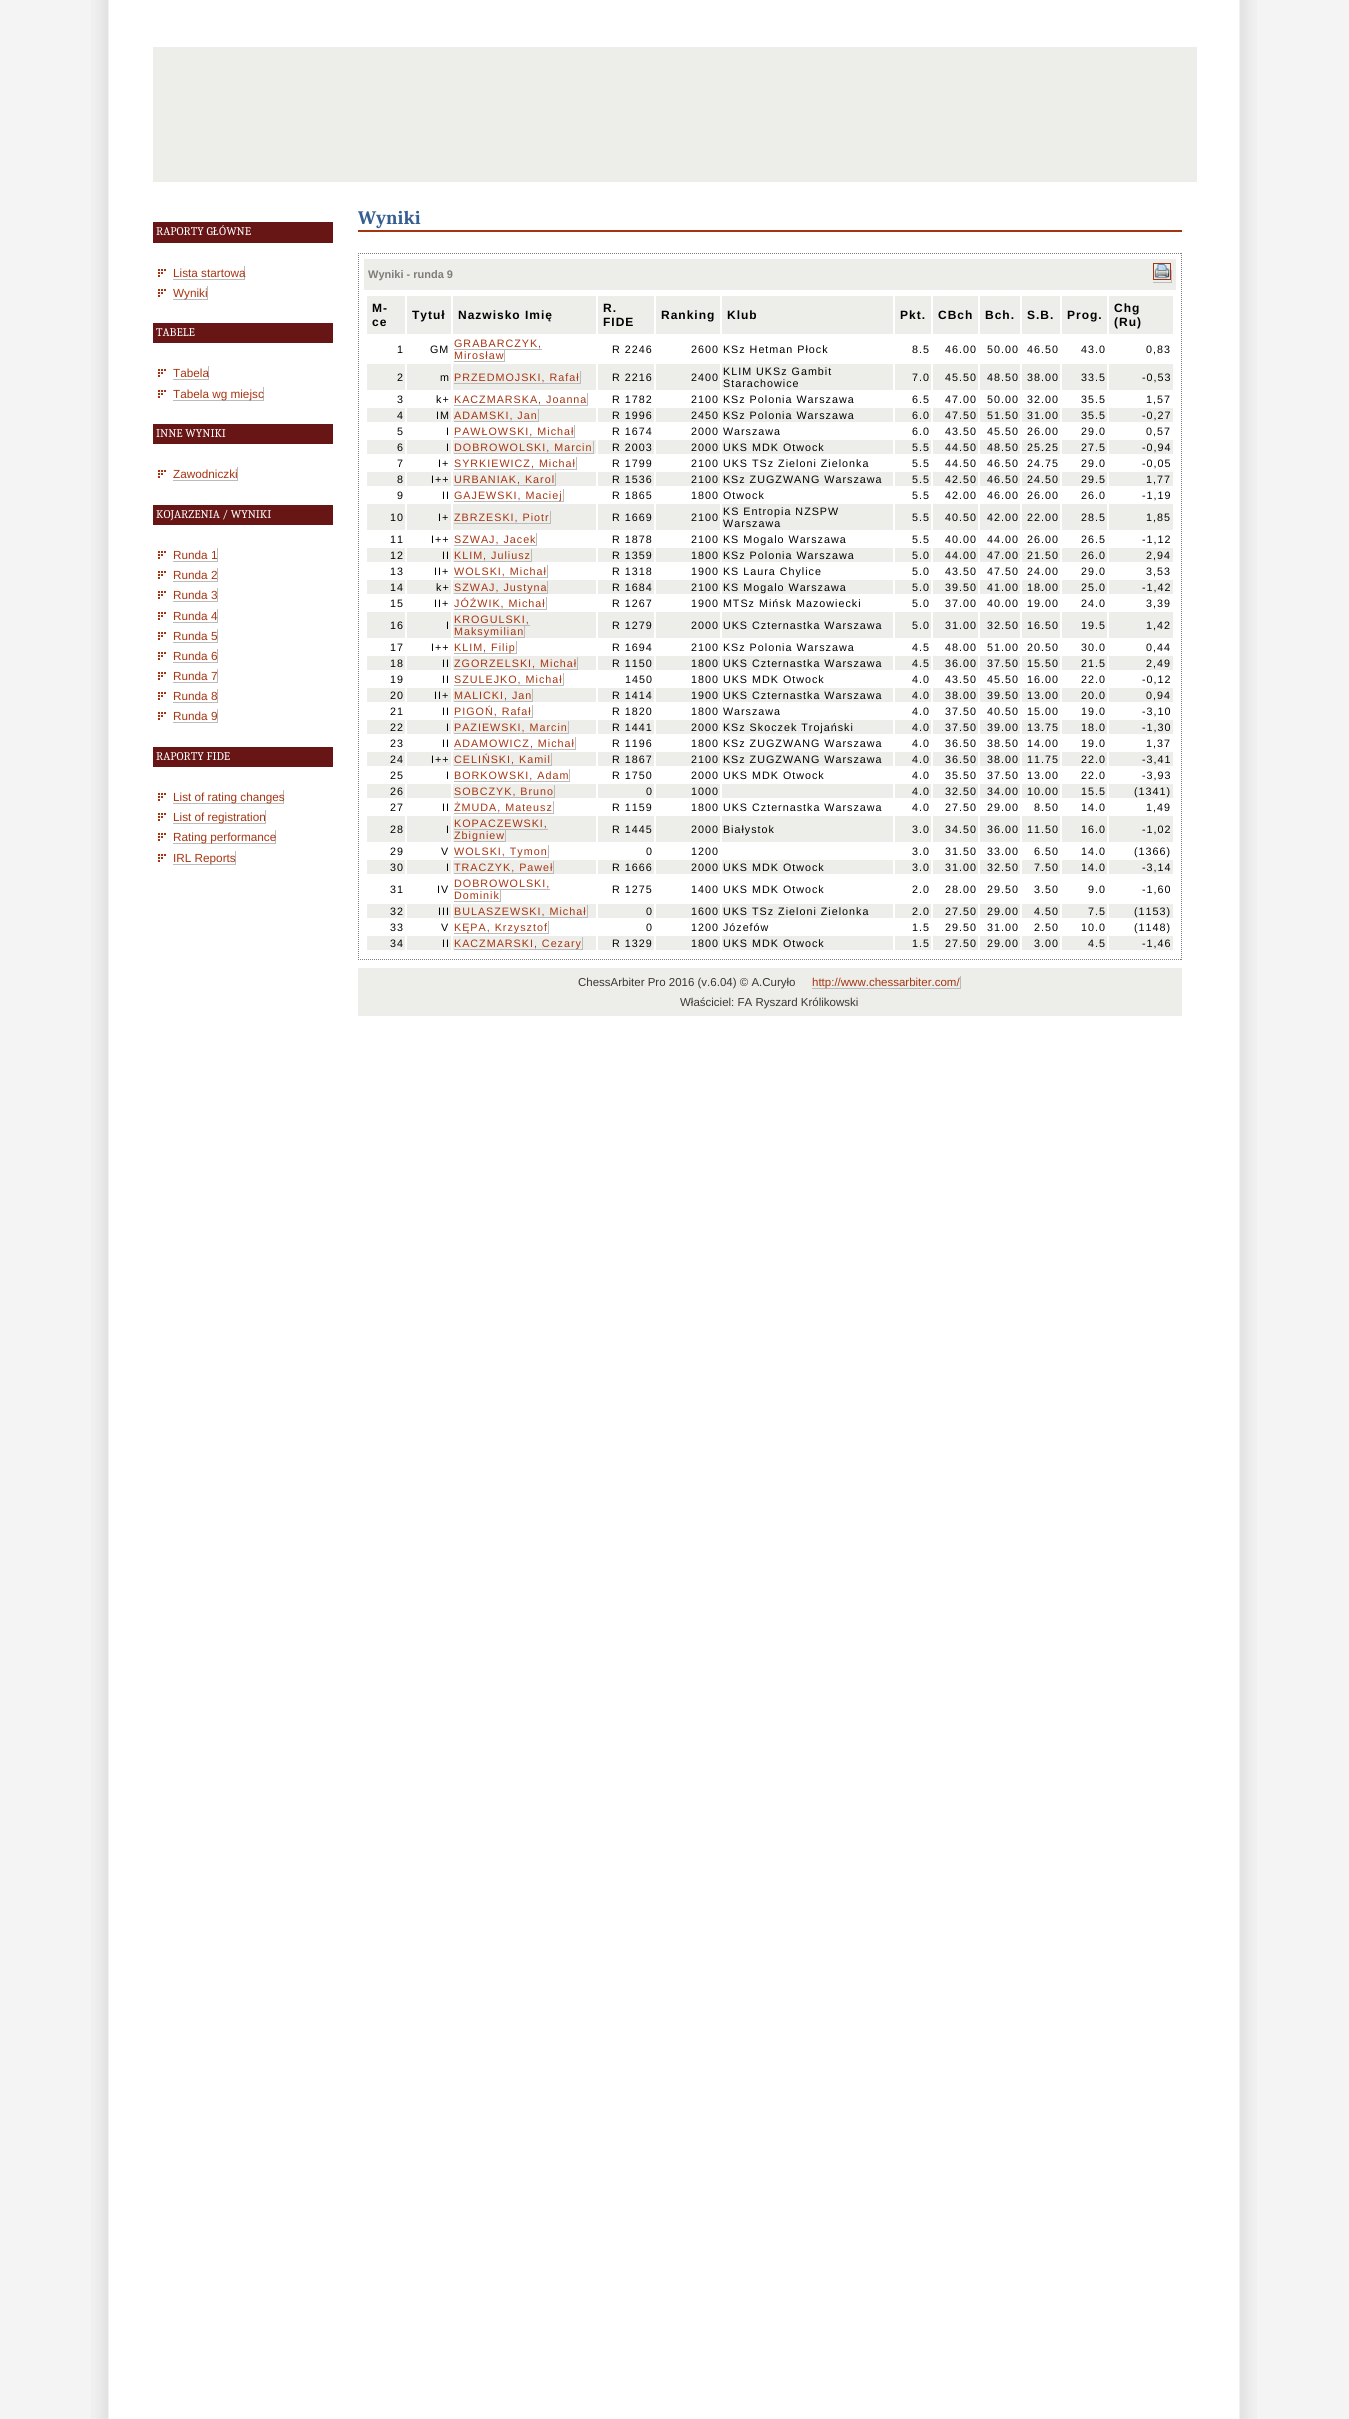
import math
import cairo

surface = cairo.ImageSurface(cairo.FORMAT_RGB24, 1349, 2419)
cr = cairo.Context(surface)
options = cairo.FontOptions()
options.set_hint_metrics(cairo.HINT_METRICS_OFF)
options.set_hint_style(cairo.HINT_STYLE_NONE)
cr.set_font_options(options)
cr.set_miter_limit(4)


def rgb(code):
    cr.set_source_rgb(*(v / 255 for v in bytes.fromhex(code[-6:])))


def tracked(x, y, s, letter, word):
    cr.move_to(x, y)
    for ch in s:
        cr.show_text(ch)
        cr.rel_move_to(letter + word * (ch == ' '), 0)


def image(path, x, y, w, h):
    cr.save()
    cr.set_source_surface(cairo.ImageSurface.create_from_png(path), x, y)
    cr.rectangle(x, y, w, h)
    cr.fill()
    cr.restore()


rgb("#f4f4f4")
cr.paint()
image("img/1.png", 91, 0, 1166, 2419)
rgb("#edeeea")
cr.rectangle(153, 47, 1044, 135)
cr.fill()
rgb("#671515")
cr.rectangle(153, 222, 180, 21)
cr.fill()
image("img/2.png", 158, 269, 8, 8)
rgb("#bbbbbb")
cr.rectangle(244, 266, 1, 14)
cr.fill()
cr.rectangle(173, 279, 72, 1)
cr.fill()
image("img/2.png", 158, 289, 8, 8)
for x, y, w, h, color in [
    (207, 286, 1, 14, "#bbbbbb"),
    (173, 299, 35, 1, "#bbbbbb"),
    (153, 323, 180, 20, "#671515"),
]:
    rgb(color)
    cr.rectangle(x, y, w, h)
    cr.fill()
image("img/2.png", 158, 369, 8, 8)
rgb("#bbbbbb")
cr.rectangle(208, 366, 1, 14)
cr.fill()
cr.rectangle(173, 379, 36, 1)
cr.fill()
image("img/2.png", 158, 390, 8, 8)
for x, y, w, h, color in [
    (263, 387, 1, 14, "#bbbbbb"),
    (173, 400, 91, 1, "#bbbbbb"),
    (153, 424, 180, 20, "#671515"),
]:
    rgb(color)
    cr.rectangle(x, y, w, h)
    cr.fill()
image("img/2.png", 158, 470, 8, 8)
for x, y, w, h, color in [
    (237, 467, 1, 14, "#bbbbbb"),
    (173, 480, 65, 1, "#bbbbbb"),
    (153, 505, 180, 20, "#671515"),
]:
    rgb(color)
    cr.rectangle(x, y, w, h)
    cr.fill()
image("img/2.png", 158, 551, 8, 8)
rgb("#bbbbbb")
cr.rectangle(217, 548, 1, 14)
cr.fill()
cr.rectangle(173, 561, 45, 1)
cr.fill()
image("img/2.png", 158, 571, 8, 8)
cr.rectangle(217, 568, 1, 14)
cr.fill()
cr.rectangle(173, 581, 45, 1)
cr.fill()
image("img/2.png", 158, 591, 8, 8)
cr.rectangle(217, 588, 1, 14)
cr.fill()
cr.rectangle(173, 601, 45, 1)
cr.fill()
image("img/2.png", 158, 612, 8, 8)
cr.rectangle(217, 609, 1, 14)
cr.fill()
cr.rectangle(173, 622, 45, 1)
cr.fill()
image("img/2.png", 158, 632, 8, 8)
cr.rectangle(217, 629, 1, 14)
cr.fill()
cr.rectangle(173, 642, 45, 1)
cr.fill()
image("img/2.png", 158, 652, 8, 8)
cr.rectangle(217, 649, 1, 14)
cr.fill()
cr.rectangle(173, 662, 45, 1)
cr.fill()
image("img/2.png", 158, 672, 8, 8)
cr.rectangle(217, 669, 1, 14)
cr.fill()
cr.rectangle(173, 682, 45, 1)
cr.fill()
image("img/2.png", 158, 692, 8, 8)
cr.rectangle(217, 689, 1, 14)
cr.fill()
cr.rectangle(173, 702, 45, 1)
cr.fill()
image("img/2.png", 158, 712, 8, 8)
for x, y, w, h, color in [
    (217, 709, 1, 14, "#bbbbbb"),
    (173, 722, 45, 1, "#bbbbbb"),
    (153, 747, 180, 20, "#671515"),
]:
    rgb(color)
    cr.rectangle(x, y, w, h)
    cr.fill()
image("img/2.png", 158, 793, 8, 8)
rgb("#bbbbbb")
cr.rectangle(283, 790, 1, 14)
cr.fill()
cr.rectangle(173, 803, 111, 1)
cr.fill()
image("img/2.png", 158, 813, 8, 8)
cr.rectangle(265, 810, 1, 14)
cr.fill()
cr.rectangle(173, 823, 93, 1)
cr.fill()
image("img/2.png", 158, 833, 8, 8)
cr.rectangle(275, 830, 1, 14)
cr.fill()
cr.rectangle(173, 843, 103, 1)
cr.fill()
image("img/2.png", 158, 854, 8, 8)
for x, y, w, h, color in [
    (235, 851, 1, 14, "#bbbbbb"),
    (173, 864, 63, 1, "#bbbbbb"),
    (358, 230, 824, 2, "#a53512"),
]:
    rgb(color)
    cr.rectangle(x, y, w, h)
    cr.fill()
cr.new_path()
cr.move_to(358, 253.5)
cr.line_to(1182, 253.5)
rgb("#807c7c")
cr.set_line_width(1)
cr.set_dash([1, 1])
cr.stroke()
cr.new_path()
cr.move_to(1181.5, 253)
cr.line_to(1181.5, 960)
cr.stroke()
cr.new_path()
cr.move_to(358, 959.5)
cr.line_to(1182, 959.5)
cr.stroke()
cr.new_path()
cr.move_to(358.5, 253)
cr.line_to(358.5, 960)
cr.stroke()
rgb("#edeeea")
cr.rectangle(364, 259, 812, 31)
cr.fill()
cr.rectangle(1153.5, 263.5, 17, 16)
rgb("#a53512")
cr.set_dash([])
cr.stroke()
image("img/3.png", 1154, 264, 16, 15)
for x, y, w, h, color in [
    (1171, 270, 1, 13, "#bbbbbb"),
    (1153, 282, 19, 1, "#bbbbbb"),
    (367, 296, 38, 38, "#edeeea"),
    (407, 296, 44, 38, "#edeeea"),
    (453, 296, 143, 38, "#edeeea"),
    (598, 296, 56, 38, "#edeeea"),
    (656, 296, 64, 38, "#edeeea"),
    (722, 296, 171, 38, "#edeeea"),
    (895, 296, 36, 38, "#edeeea"),
    (933, 296, 45, 38, "#edeeea"),
    (980, 296, 40, 38, "#edeeea"),
    (1022, 296, 38, 38, "#edeeea"),
    (1062, 296, 45, 38, "#edeeea"),
    (1109, 296, 64, 38, "#edeeea"),
    (454, 349, 88, 1, "#bbbbbb"),
    (504, 349, 1, 13, "#bbbbbb"),
    (454, 361, 51, 1, "#bbbbbb"),
    (367, 364, 38, 26, "#edeeea"),
    (407, 364, 44, 26, "#edeeea"),
    (453, 364, 143, 26, "#edeeea"),
    (580, 371, 1, 13, "#bbbbbb"),
    (454, 383, 127, 1, "#bbbbbb"),
    (598, 364, 56, 26, "#edeeea"),
    (656, 364, 64, 26, "#edeeea"),
    (722, 364, 171, 26, "#edeeea"),
    (895, 364, 36, 26, "#edeeea"),
    (933, 364, 45, 26, "#edeeea"),
    (980, 364, 40, 26, "#edeeea"),
    (1022, 364, 38, 26, "#edeeea"),
    (1062, 364, 45, 26, "#edeeea"),
    (1109, 364, 64, 26, "#edeeea"),
    (587, 393, 1, 13, "#bbbbbb"),
    (454, 405, 134, 1, "#bbbbbb"),
    (367, 408, 38, 14, "#edeeea"),
    (407, 408, 44, 14, "#edeeea"),
    (453, 408, 143, 14, "#edeeea"),
    (538, 409, 1, 13, "#bbbbbb"),
    (454, 421, 85, 1, "#bbbbbb"),
    (598, 408, 56, 14, "#edeeea"),
    (722, 408, 171, 14, "#edeeea"),
    (656, 408, 64, 14, "#edeeea"),
    (895, 408, 36, 14, "#edeeea"),
    (933, 408, 45, 14, "#edeeea"),
    (980, 408, 40, 14, "#edeeea"),
    (1022, 408, 38, 14, "#edeeea"),
    (1062, 408, 45, 14, "#edeeea"),
    (1109, 408, 64, 14, "#edeeea"),
    (574, 425, 1, 13, "#bbbbbb"),
    (454, 437, 121, 1, "#bbbbbb"),
    (367, 440, 38, 14, "#edeeea"),
    (407, 440, 44, 14, "#edeeea"),
    (453, 440, 143, 14, "#edeeea"),
    (593, 441, 1, 13, "#bbbbbb"),
    (454, 453, 140, 1, "#bbbbbb"),
    (598, 440, 56, 14, "#edeeea"),
    (722, 440, 171, 14, "#edeeea"),
    (656, 440, 64, 14, "#edeeea"),
    (895, 440, 36, 14, "#edeeea"),
    (933, 440, 45, 14, "#edeeea"),
    (980, 440, 40, 14, "#edeeea"),
    (1022, 440, 38, 14, "#edeeea"),
    (1062, 440, 45, 14, "#edeeea"),
    (1109, 440, 64, 14, "#edeeea"),
    (576, 457, 1, 13, "#bbbbbb"),
    (454, 469, 123, 1, "#bbbbbb"),
    (367, 472, 38, 14, "#edeeea"),
    (407, 472, 44, 14, "#edeeea"),
    (453, 472, 143, 14, "#edeeea"),
    (555, 473, 1, 13, "#bbbbbb"),
    (454, 485, 102, 1, "#bbbbbb"),
    (598, 472, 56, 14, "#edeeea"),
    (722, 472, 171, 14, "#edeeea"),
    (656, 472, 64, 14, "#edeeea"),
    (895, 472, 36, 14, "#edeeea"),
    (933, 472, 45, 14, "#edeeea"),
    (980, 472, 40, 14, "#edeeea"),
    (1022, 472, 38, 14, "#edeeea"),
    (1062, 472, 45, 14, "#edeeea"),
    (1109, 472, 64, 14, "#edeeea"),
    (563, 489, 1, 13, "#bbbbbb"),
    (454, 501, 110, 1, "#bbbbbb"),
    (367, 504, 38, 26, "#edeeea"),
    (407, 504, 44, 26, "#edeeea"),
    (453, 504, 143, 26, "#edeeea"),
    (550, 511, 1, 13, "#bbbbbb"),
    (454, 523, 97, 1, "#bbbbbb"),
    (598, 504, 56, 26, "#edeeea"),
    (656, 504, 64, 26, "#edeeea"),
    (722, 504, 171, 26, "#edeeea"),
    (895, 504, 36, 26, "#edeeea"),
    (933, 504, 45, 26, "#edeeea"),
    (980, 504, 40, 26, "#edeeea"),
    (1022, 504, 38, 26, "#edeeea"),
    (1062, 504, 45, 26, "#edeeea"),
    (1109, 504, 64, 26, "#edeeea"),
    (536, 533, 1, 13, "#bbbbbb"),
    (454, 545, 83, 1, "#bbbbbb"),
    (367, 548, 38, 14, "#edeeea"),
    (407, 548, 44, 14, "#edeeea"),
    (453, 548, 143, 14, "#edeeea"),
    (531, 549, 1, 13, "#bbbbbb"),
    (454, 561, 78, 1, "#bbbbbb"),
    (598, 548, 56, 14, "#edeeea"),
    (722, 548, 171, 14, "#edeeea"),
    (656, 548, 64, 14, "#edeeea"),
    (895, 548, 36, 14, "#edeeea"),
    (933, 548, 45, 14, "#edeeea"),
    (980, 548, 40, 14, "#edeeea"),
    (1022, 548, 38, 14, "#edeeea"),
    (1062, 548, 45, 14, "#edeeea"),
    (1109, 548, 64, 14, "#edeeea"),
    (547, 565, 1, 13, "#bbbbbb"),
    (454, 577, 94, 1, "#bbbbbb"),
    (367, 580, 38, 14, "#edeeea"),
    (407, 580, 44, 14, "#edeeea"),
    (453, 580, 143, 14, "#edeeea"),
    (547, 581, 1, 13, "#bbbbbb"),
    (454, 593, 94, 1, "#bbbbbb"),
    (598, 580, 56, 14, "#edeeea"),
    (722, 580, 171, 14, "#edeeea"),
    (656, 580, 64, 14, "#edeeea"),
    (895, 580, 36, 14, "#edeeea"),
    (933, 580, 45, 14, "#edeeea"),
    (980, 580, 40, 14, "#edeeea"),
    (1022, 580, 38, 14, "#edeeea"),
    (1062, 580, 45, 14, "#edeeea"),
    (1109, 580, 64, 14, "#edeeea"),
    (546, 597, 1, 13, "#bbbbbb"),
    (454, 609, 93, 1, "#bbbbbb"),
    (367, 612, 38, 26, "#edeeea"),
    (407, 612, 44, 26, "#edeeea"),
    (453, 612, 143, 26, "#edeeea"),
    (454, 625, 76, 1, "#bbbbbb"),
    (524, 625, 1, 13, "#bbbbbb"),
    (454, 637, 71, 1, "#bbbbbb"),
    (598, 612, 56, 26, "#edeeea"),
    (722, 612, 171, 26, "#edeeea"),
    (656, 612, 64, 26, "#edeeea"),
    (895, 612, 36, 26, "#edeeea"),
    (933, 612, 45, 26, "#edeeea"),
    (980, 612, 40, 26, "#edeeea"),
    (1022, 612, 38, 26, "#edeeea"),
    (1062, 612, 45, 26, "#edeeea"),
    (1109, 612, 64, 26, "#edeeea"),
    (516, 641, 1, 13, "#bbbbbb"),
    (454, 653, 63, 1, "#bbbbbb"),
    (367, 656, 38, 14, "#edeeea"),
    (407, 656, 44, 14, "#edeeea"),
    (453, 656, 143, 14, "#edeeea"),
    (577, 657, 1, 13, "#bbbbbb"),
    (454, 669, 124, 1, "#bbbbbb"),
    (598, 656, 56, 14, "#edeeea"),
    (722, 656, 171, 14, "#edeeea"),
    (656, 656, 64, 14, "#edeeea"),
    (895, 656, 36, 14, "#edeeea"),
    (933, 656, 45, 14, "#edeeea"),
    (980, 656, 40, 14, "#edeeea"),
    (1022, 656, 38, 14, "#edeeea"),
    (1062, 656, 45, 14, "#edeeea"),
    (1109, 656, 64, 14, "#edeeea"),
    (563, 673, 1, 13, "#bbbbbb"),
    (454, 685, 110, 1, "#bbbbbb"),
    (367, 688, 38, 14, "#edeeea"),
    (407, 688, 44, 14, "#edeeea"),
    (453, 688, 143, 14, "#edeeea"),
    (532, 689, 1, 13, "#bbbbbb"),
    (454, 701, 79, 1, "#bbbbbb"),
    (598, 688, 56, 14, "#edeeea"),
    (722, 688, 171, 14, "#edeeea"),
    (656, 688, 64, 14, "#edeeea"),
    (895, 688, 36, 14, "#edeeea"),
    (933, 688, 45, 14, "#edeeea"),
    (980, 688, 40, 14, "#edeeea"),
    (1022, 688, 38, 14, "#edeeea"),
    (1062, 688, 45, 14, "#edeeea"),
    (1109, 688, 64, 14, "#edeeea"),
    (532, 705, 1, 13, "#bbbbbb"),
    (454, 717, 79, 1, "#bbbbbb"),
    (367, 720, 38, 14, "#edeeea"),
    (407, 720, 44, 14, "#edeeea"),
    (453, 720, 143, 14, "#edeeea"),
    (568, 721, 1, 13, "#bbbbbb"),
    (454, 733, 115, 1, "#bbbbbb"),
    (598, 720, 56, 14, "#edeeea"),
    (722, 720, 171, 14, "#edeeea"),
    (656, 720, 64, 14, "#edeeea"),
    (895, 720, 36, 14, "#edeeea"),
    (933, 720, 45, 14, "#edeeea"),
    (980, 720, 40, 14, "#edeeea"),
    (1022, 720, 38, 14, "#edeeea"),
    (1062, 720, 45, 14, "#edeeea"),
    (1109, 720, 64, 14, "#edeeea"),
    (575, 737, 1, 13, "#bbbbbb"),
    (454, 749, 122, 1, "#bbbbbb"),
    (367, 752, 38, 14, "#edeeea"),
    (407, 752, 44, 14, "#edeeea"),
    (453, 752, 143, 14, "#edeeea"),
    (551, 753, 1, 13, "#bbbbbb"),
    (454, 765, 98, 1, "#bbbbbb"),
    (598, 752, 56, 14, "#edeeea"),
    (722, 752, 171, 14, "#edeeea"),
    (656, 752, 64, 14, "#edeeea"),
    (895, 752, 36, 14, "#edeeea"),
    (933, 752, 45, 14, "#edeeea"),
    (980, 752, 40, 14, "#edeeea"),
    (1022, 752, 38, 14, "#edeeea"),
    (1062, 752, 45, 14, "#edeeea"),
    (1109, 752, 64, 14, "#edeeea"),
    (569, 769, 1, 13, "#bbbbbb"),
    (454, 781, 116, 1, "#bbbbbb"),
    (367, 784, 38, 14, "#edeeea"),
    (407, 784, 44, 14, "#edeeea"),
    (453, 784, 143, 14, "#edeeea"),
    (554, 785, 1, 13, "#bbbbbb"),
    (454, 797, 101, 1, "#bbbbbb"),
    (598, 784, 56, 14, "#edeeea"),
    (656, 784, 64, 14, "#edeeea"),
    (722, 784, 171, 14, "#edeeea"),
    (895, 784, 36, 14, "#edeeea"),
    (933, 784, 45, 14, "#edeeea"),
    (980, 784, 40, 14, "#edeeea"),
    (1022, 784, 38, 14, "#edeeea"),
    (1062, 784, 45, 14, "#edeeea"),
    (1109, 784, 64, 14, "#edeeea"),
    (553, 801, 1, 13, "#bbbbbb"),
    (454, 813, 100, 1, "#bbbbbb"),
    (367, 816, 38, 26, "#edeeea"),
    (407, 816, 44, 26, "#edeeea"),
    (453, 816, 143, 26, "#edeeea"),
    (454, 829, 94, 1, "#bbbbbb"),
    (505, 829, 1, 13, "#bbbbbb"),
    (454, 841, 52, 1, "#bbbbbb"),
    (598, 816, 56, 26, "#edeeea"),
    (722, 816, 171, 26, "#edeeea"),
    (656, 816, 64, 26, "#edeeea"),
    (895, 816, 36, 26, "#edeeea"),
    (933, 816, 45, 26, "#edeeea"),
    (980, 816, 40, 26, "#edeeea"),
    (1022, 816, 38, 26, "#edeeea"),
    (1062, 816, 45, 26, "#edeeea"),
    (1109, 816, 64, 26, "#edeeea"),
    (548, 845, 1, 13, "#bbbbbb"),
    (454, 857, 95, 1, "#bbbbbb"),
    (367, 860, 38, 14, "#edeeea"),
    (407, 860, 44, 14, "#edeeea"),
    (453, 860, 143, 14, "#edeeea"),
    (553, 861, 1, 13, "#bbbbbb"),
    (454, 873, 100, 1, "#bbbbbb"),
    (598, 860, 56, 14, "#edeeea"),
    (722, 860, 171, 14, "#edeeea"),
    (656, 860, 64, 14, "#edeeea"),
    (895, 860, 36, 14, "#edeeea"),
    (933, 860, 45, 14, "#edeeea"),
    (980, 860, 40, 14, "#edeeea"),
    (1022, 860, 38, 14, "#edeeea"),
    (1062, 860, 45, 14, "#edeeea"),
    (1109, 860, 64, 14, "#edeeea"),
    (454, 889, 96, 1, "#bbbbbb"),
    (500, 889, 1, 13, "#bbbbbb"),
    (454, 901, 47, 1, "#bbbbbb"),
    (367, 904, 38, 14, "#edeeea"),
    (407, 904, 44, 14, "#edeeea"),
    (453, 904, 143, 14, "#edeeea"),
    (587, 905, 1, 13, "#bbbbbb"),
    (454, 917, 134, 1, "#bbbbbb"),
    (598, 904, 56, 14, "#edeeea"),
    (722, 904, 171, 14, "#edeeea"),
    (656, 904, 64, 14, "#edeeea"),
    (895, 904, 36, 14, "#edeeea"),
    (933, 904, 45, 14, "#edeeea"),
    (980, 904, 40, 14, "#edeeea"),
    (1022, 904, 38, 14, "#edeeea"),
    (1062, 904, 45, 14, "#edeeea"),
    (1109, 904, 64, 14, "#edeeea"),
    (548, 921, 1, 13, "#bbbbbb"),
    (454, 933, 95, 1, "#bbbbbb"),
    (367, 936, 38, 14, "#edeeea"),
    (407, 936, 44, 14, "#edeeea"),
    (453, 936, 143, 14, "#edeeea"),
    (582, 937, 1, 13, "#bbbbbb"),
    (454, 949, 129, 1, "#bbbbbb"),
    (598, 936, 56, 14, "#edeeea"),
    (722, 936, 171, 14, "#edeeea"),
    (656, 936, 64, 14, "#edeeea"),
    (895, 936, 36, 14, "#edeeea"),
    (933, 936, 45, 14, "#edeeea"),
    (980, 936, 40, 14, "#edeeea"),
    (1022, 936, 38, 14, "#edeeea"),
    (1062, 936, 45, 14, "#edeeea"),
    (1109, 936, 64, 14, "#edeeea"),
    (358, 968, 824, 48, "#edeeea"),
    (960, 976, 1, 13, "#bbbbbb"),
    (812, 988, 149, 1, "#bbbbbb"),
]:
    rgb(color)
    cr.rectangle(x, y, w, h)
    cr.fill()
cr.select_font_face("Caladea")
cr.set_font_size(11.75)
rgb("#ffffff")
cr.move_to(156, 235)
cr.show_text("RAPORTY GŁÓWNE")
cr.select_font_face("Liberation Sans")
rgb("#a53512")
cr.move_to(173, 277)
cr.show_text("Lista startowa")
cr.move_to(173, 297)
cr.show_text("Wyniki")
cr.select_font_face("Caladea")
rgb("#ffffff")
cr.move_to(156, 336)
cr.show_text("TABELE")
cr.select_font_face("Liberation Sans")
rgb("#a53512")
cr.move_to(173, 377)
cr.show_text("Tabela")
cr.move_to(173, 398)
cr.show_text("Tabela wg miejsc")
cr.select_font_face("Caladea")
rgb("#ffffff")
cr.move_to(156, 437)
cr.show_text("INNE WYNIKI")
cr.select_font_face("Liberation Sans")
rgb("#a53512")
cr.move_to(173, 478)
cr.show_text("Zawodniczki")
cr.select_font_face("Caladea")
rgb("#ffffff")
cr.move_to(156, 518)
cr.show_text("KOJARZENIA / WYNIKI")
cr.select_font_face("Liberation Sans")
rgb("#a53512")
for x, y, s in [
    (173, 559, "Runda 1"),
    (173, 579, "Runda 2"),
    (173, 599, "Runda 3"),
    (173, 620, "Runda 4"),
    (173, 640, "Runda 5"),
    (173, 660, "Runda 6"),
    (173, 680, "Runda 7"),
    (173, 700, "Runda 8"),
    (173, 720, "Runda 9"),
]:
    cr.move_to(x, y)
    cr.show_text(s)
cr.select_font_face("Caladea")
rgb("#ffffff")
cr.move_to(156, 760)
cr.show_text("RAPORTY FIDE")
cr.select_font_face("Liberation Sans")
rgb("#a53512")
for x, y, s in [
    (173, 801, "List of rating changes"),
    (173, 821, "List of registration"),
    (173, 841, "Rating performance"),
    (173, 862, "IRL Reports"),
]:
    cr.move_to(x, y)
    cr.show_text(s)
cr.select_font_face("Caladea", cairo.FONT_SLANT_NORMAL, cairo.FONT_WEIGHT_BOLD)
cr.set_font_size(19)
rgb("#365f91")
cr.move_to(358, 224)
cr.show_text("Wyniki")
cr.select_font_face("Liberation Sans", cairo.FONT_SLANT_NORMAL, cairo.FONT_WEIGHT_BOLD)
cr.set_font_size(11)
rgb("#807c7c")
cr.move_to(368, 278)
cr.show_text("Wyniki - runda 9")
cr.set_font_size(12)
rgb("#000000")
for x, y, s in [
    (372, 312, "M-"),
    (372, 326, "ce"),
    (412, 319, "Tytuł"),
    (458, 319, "Nazwisko Imię"),
    (603, 312, "R."),
    (603, 326, "FIDE"),
    (661, 319, "Ranking"),
    (727, 319, "Klub"),
    (900, 319, "Pkt."),
    (938, 319, "CBch"),
    (985, 319, "Bch."),
    (1027, 319, "S.B."),
    (1067, 319, "Prog."),
    (1114, 312, "Chg"),
    (1114, 326, "(Ru)"),
]:
    tracked(x, y, s, 1, 0)
cr.select_font_face("Liberation Sans")
cr.set_font_size(10.75)
tracked(397, 353, "1", 1, 0)
tracked(430, 353, "GM", 1, 0)
rgb("#a53512")
tracked(454, 347, "GRABARCZYK,", 1, 0)
tracked(454, 359, "Mirosław", 1, 0)
rgb("#000000")
for x, y, s in [
    (612, 353, "R 2246"),
    (691, 353, "2600 KSz Hetman Płock"),
    (912, 353, "8.5"),
    (945, 353, "46.00"),
    (987, 353, "50.00"),
    (1027, 353, "46.50"),
    (1081, 353, "43.0"),
    (1146, 353, "0,83"),
    (397, 381, "2"),
    (440, 381, "m"),
]:
    tracked(x, y, s, 1, 0)
rgb("#a53512")
tracked(454, 381, "PRZEDMOJSKI, Rafał", 1, 0)
rgb("#000000")
for x, y, s in [
    (612, 381, "R 2216"),
    (691, 381, "2400"),
    (723, 375, "KLIM UKSz Gambit"),
    (723, 387, "Starachowice"),
    (912, 381, "7.0"),
    (945, 381, "45.50"),
    (987, 381, "48.50"),
    (1027, 381, "38.00"),
    (1081, 381, "33.5"),
    (1142, 381, "-0,53"),
    (397, 403, "3"),
    (436, 403, "k+"),
]:
    tracked(x, y, s, 1, 0)
rgb("#a53512")
tracked(454, 403, "KACZMARSKA, Joanna", 1, 0)
rgb("#000000")
for x, y, s in [
    (612, 403, "R 1782"),
    (691, 403, "2100 KSz Polonia Warszawa"),
    (912, 403, "6.5"),
    (945, 403, "47.00"),
    (987, 403, "50.00"),
    (1027, 403, "32.00"),
    (1081, 403, "35.5"),
    (1146, 403, "1,57"),
    (397, 419, "4"),
    (436, 419, "IM"),
]:
    tracked(x, y, s, 1, 0)
rgb("#a53512")
tracked(454, 419, "ADAMSKI, Jan", 1, 0)
rgb("#000000")
for x, y, s in [
    (612, 419, "R 1996"),
    (691, 419, "2450 KSz Polonia Warszawa"),
    (912, 419, "6.0"),
    (945, 419, "47.50"),
    (987, 419, "51.50"),
    (1027, 419, "31.00"),
    (1081, 419, "35.5"),
    (1142, 419, "-0,27"),
    (397, 435, "5"),
    (446, 435, "I"),
]:
    tracked(x, y, s, 1, 0)
rgb("#a53512")
tracked(454, 435, "PAWŁOWSKI, Michał", 1, 0)
rgb("#000000")
for x, y, s in [
    (612, 435, "R 1674"),
    (691, 435, "2000 Warszawa"),
    (912, 435, "6.0"),
    (945, 435, "43.50"),
    (987, 435, "45.50"),
    (1027, 435, "26.00"),
    (1081, 435, "29.0"),
    (1146, 435, "0,57"),
    (397, 451, "6"),
    (446, 451, "I"),
]:
    tracked(x, y, s, 1, 0)
rgb("#a53512")
tracked(454, 451, "DOBROWOLSKI, Marcin", 1, 0)
rgb("#000000")
for x, y, s in [
    (612, 451, "R 2003"),
    (691, 451, "2000 UKS MDK Otwock"),
    (912, 451, "5.5"),
    (945, 451, "44.50"),
    (987, 451, "48.50"),
    (1027, 451, "25.25"),
    (1081, 451, "27.5"),
    (1142, 451, "-0,94"),
    (397, 467, "7"),
    (438, 467, "I+"),
]:
    tracked(x, y, s, 1, 0)
rgb("#a53512")
tracked(454, 467, "SYRKIEWICZ, Michał", 1, 0)
rgb("#000000")
for x, y, s in [
    (612, 467, "R 1799"),
    (691, 467, "2100 UKS TSz Zieloni Zielonka"),
    (912, 467, "5.5"),
    (945, 467, "44.50"),
    (987, 467, "46.50"),
    (1027, 467, "24.75"),
    (1081, 467, "29.0"),
    (1142, 467, "-0,05"),
    (397, 483, "8"),
    (431, 483, "I++"),
]:
    tracked(x, y, s, 1, 0)
rgb("#a53512")
tracked(454, 483, "URBANIAK, Karol", 1, 0)
rgb("#000000")
for x, y, s in [
    (612, 483, "R 1536"),
    (691, 483, "2100 KSz ZUGZWANG Warszawa"),
    (912, 483, "5.5"),
    (945, 483, "42.50"),
    (987, 483, "46.50"),
    (1027, 483, "24.50"),
    (1081, 483, "29.5"),
    (1146, 483, "1,77"),
    (397, 499, "9"),
    (442, 499, "II"),
]:
    tracked(x, y, s, 1, 0)
rgb("#a53512")
tracked(454, 499, "GAJEWSKI, Maciej", 1, 0)
rgb("#000000")
for x, y, s in [
    (612, 499, "R 1865"),
    (691, 499, "1800 Otwock"),
    (912, 499, "5.5"),
    (945, 499, "42.00"),
    (987, 499, "46.00"),
    (1027, 499, "26.00"),
    (1081, 499, "26.0"),
    (1142, 499, "-1,19"),
    (390, 521, "10"),
    (438, 521, "I+"),
]:
    tracked(x, y, s, 1, 0)
rgb("#a53512")
tracked(454, 521, "ZBRZESKI, Piotr", 1, 0)
rgb("#000000")
for x, y, s in [
    (612, 521, "R 1669"),
    (691, 521, "2100"),
    (723, 515, "KS Entropia NZSPW"),
    (723, 527, "Warszawa"),
    (912, 521, "5.5"),
    (945, 521, "40.50"),
    (987, 521, "42.00"),
    (1027, 521, "22.00"),
    (1081, 521, "28.5"),
    (1146, 521, "1,85"),
    (390, 543, "11"),
    (431, 543, "I++"),
]:
    tracked(x, y, s, 1, 0)
rgb("#a53512")
tracked(454, 543, "SZWAJ, Jacek", 1, 0)
rgb("#000000")
for x, y, s in [
    (612, 543, "R 1878"),
    (691, 543, "2100 KS Mogalo Warszawa"),
    (912, 543, "5.5"),
    (945, 543, "40.00"),
    (987, 543, "44.00"),
    (1027, 543, "26.00"),
    (1081, 543, "26.5"),
    (1142, 543, "-1,12"),
    (390, 559, "12"),
    (442, 559, "II"),
]:
    tracked(x, y, s, 1, 0)
rgb("#a53512")
tracked(454, 559, "KLIM, Juliusz", 1, 0)
rgb("#000000")
for x, y, s in [
    (612, 559, "R 1359"),
    (691, 559, "1800 KSz Polonia Warszawa"),
    (912, 559, "5.0"),
    (945, 559, "44.00"),
    (987, 559, "47.00"),
    (1027, 559, "21.50"),
    (1081, 559, "26.0"),
    (1146, 559, "2,94"),
    (390, 575, "13"),
    (434, 575, "II+"),
]:
    tracked(x, y, s, 1, 0)
rgb("#a53512")
tracked(454, 575, "WOLSKI, Michał", 1, 0)
rgb("#000000")
for x, y, s in [
    (612, 575, "R 1318"),
    (691, 575, "1900 KS Laura Chylice"),
    (912, 575, "5.0"),
    (945, 575, "43.50"),
    (987, 575, "47.50"),
    (1027, 575, "24.00"),
    (1081, 575, "29.0"),
    (1146, 575, "3,53"),
    (390, 591, "14"),
    (436, 591, "k+"),
]:
    tracked(x, y, s, 1, 0)
rgb("#a53512")
tracked(454, 591, "SZWAJ, Justyna", 1, 0)
rgb("#000000")
for x, y, s in [
    (612, 591, "R 1684"),
    (691, 591, "2100 KS Mogalo Warszawa"),
    (912, 591, "5.0"),
    (945, 591, "39.50"),
    (987, 591, "41.00"),
    (1027, 591, "18.00"),
    (1081, 591, "25.0"),
    (1142, 591, "-1,42"),
    (390, 607, "15"),
    (434, 607, "II+"),
]:
    tracked(x, y, s, 1, 0)
rgb("#a53512")
tracked(454, 607, "JÓŹWIK, Michał", 1, 0)
rgb("#000000")
for x, y, s in [
    (612, 607, "R 1267"),
    (691, 607, "1900 MTSz Mińsk Mazowiecki"),
    (912, 607, "5.0"),
    (945, 607, "37.00"),
    (987, 607, "40.00"),
    (1027, 607, "19.00"),
    (1081, 607, "24.0"),
    (1146, 607, "3,39"),
    (390, 629, "16"),
    (446, 629, "I"),
]:
    tracked(x, y, s, 1, 0)
rgb("#a53512")
tracked(454, 623, "KROGULSKI,", 1, 0)
tracked(454, 635, "Maksymilian", 1, 0)
rgb("#000000")
for x, y, s in [
    (612, 629, "R 1279"),
    (691, 629, "2000 UKS Czternastka Warszawa"),
    (912, 629, "5.0"),
    (945, 629, "31.00"),
    (987, 629, "32.50"),
    (1027, 629, "16.50"),
    (1081, 629, "19.5"),
    (1146, 629, "1,42"),
    (390, 651, "17"),
    (431, 651, "I++"),
]:
    tracked(x, y, s, 1, 0)
rgb("#a53512")
tracked(454, 651, "KLIM, Filip", 1, 0)
rgb("#000000")
for x, y, s in [
    (612, 651, "R 1694"),
    (691, 651, "2100 KSz Polonia Warszawa"),
    (912, 651, "4.5"),
    (945, 651, "48.00"),
    (987, 651, "51.00"),
    (1027, 651, "20.50"),
    (1081, 651, "30.0"),
    (1146, 651, "0,44"),
    (390, 667, "18"),
    (442, 667, "II"),
]:
    tracked(x, y, s, 1, 0)
rgb("#a53512")
tracked(454, 667, "ZGORZELSKI, Michał", 1, 0)
rgb("#000000")
for x, y, s in [
    (612, 667, "R 1150"),
    (691, 667, "1800 UKS Czternastka Warszawa"),
    (912, 667, "4.5"),
    (945, 667, "36.00"),
    (987, 667, "37.50"),
    (1027, 667, "15.50"),
    (1081, 667, "21.5"),
    (1146, 667, "2,49"),
    (390, 683, "19"),
    (442, 683, "II"),
]:
    tracked(x, y, s, 1, 0)
rgb("#a53512")
tracked(454, 683, "SZULEJKO, Michał", 1, 0)
rgb("#000000")
for x, y, s in [
    (625, 683, "1450"),
    (691, 683, "1800 UKS MDK Otwock"),
    (912, 683, "4.0"),
    (945, 683, "43.50"),
    (987, 683, "45.50"),
    (1027, 683, "16.00"),
    (1081, 683, "22.0"),
    (1142, 683, "-0,12"),
    (390, 699, "20"),
    (434, 699, "II+"),
]:
    tracked(x, y, s, 1, 0)
rgb("#a53512")
tracked(454, 699, "MALICKI, Jan", 1, 0)
rgb("#000000")
for x, y, s in [
    (612, 699, "R 1414"),
    (691, 699, "1900 UKS Czternastka Warszawa"),
    (912, 699, "4.0"),
    (945, 699, "38.00"),
    (987, 699, "39.50"),
    (1027, 699, "13.00"),
    (1081, 699, "20.0"),
    (1146, 699, "0,94"),
    (390, 715, "21"),
    (442, 715, "II"),
]:
    tracked(x, y, s, 1, 0)
rgb("#a53512")
tracked(454, 715, "PIGOŃ, Rafał", 1, 0)
rgb("#000000")
for x, y, s in [
    (612, 715, "R 1820"),
    (691, 715, "1800 Warszawa"),
    (912, 715, "4.0"),
    (945, 715, "37.50"),
    (987, 715, "40.50"),
    (1027, 715, "15.00"),
    (1081, 715, "19.0"),
    (1142, 715, "-3,10"),
    (390, 731, "22"),
    (446, 731, "I"),
]:
    tracked(x, y, s, 1, 0)
rgb("#a53512")
tracked(454, 731, "PAZIEWSKI, Marcin", 1, 0)
rgb("#000000")
for x, y, s in [
    (612, 731, "R 1441"),
    (691, 731, "2000 KSz Skoczek Trojański"),
    (912, 731, "4.0"),
    (945, 731, "37.50"),
    (987, 731, "39.00"),
    (1027, 731, "13.75"),
    (1081, 731, "18.0"),
    (1142, 731, "-1,30"),
    (390, 747, "23"),
    (442, 747, "II"),
]:
    tracked(x, y, s, 1, 0)
rgb("#a53512")
tracked(454, 747, "ADAMOWICZ, Michał", 1, 0)
rgb("#000000")
for x, y, s in [
    (612, 747, "R 1196"),
    (691, 747, "1800 KSz ZUGZWANG Warszawa"),
    (912, 747, "4.0"),
    (945, 747, "36.50"),
    (987, 747, "38.50"),
    (1027, 747, "14.00"),
    (1081, 747, "19.0"),
    (1146, 747, "1,37"),
    (390, 763, "24"),
    (431, 763, "I++"),
]:
    tracked(x, y, s, 1, 0)
rgb("#a53512")
tracked(454, 763, "CELIŃSKI, Kamil", 1, 0)
rgb("#000000")
for x, y, s in [
    (612, 763, "R 1867"),
    (691, 763, "2100 KSz ZUGZWANG Warszawa"),
    (912, 763, "4.0"),
    (945, 763, "36.50"),
    (987, 763, "38.00"),
    (1027, 763, "11.75"),
    (1081, 763, "22.0"),
    (1142, 763, "-3,41"),
    (390, 779, "25"),
    (446, 779, "I"),
]:
    tracked(x, y, s, 1, 0)
rgb("#a53512")
tracked(454, 779, "BORKOWSKI, Adam", 1, 0)
rgb("#000000")
for x, y, s in [
    (612, 779, "R 1750"),
    (691, 779, "2000 UKS MDK Otwock"),
    (912, 779, "4.0"),
    (945, 779, "35.50"),
    (987, 779, "37.50"),
    (1027, 779, "13.00"),
    (1081, 779, "22.0"),
    (1142, 779, "-3,93"),
    (390, 795, "26"),
]:
    tracked(x, y, s, 1, 0)
rgb("#a53512")
tracked(454, 795, "SOBCZYK, Bruno", 1, 0)
rgb("#000000")
for x, y, s in [
    (646, 795, "0"),
    (691, 795, "1000"),
    (912, 795, "4.0"),
    (945, 795, "32.50"),
    (987, 795, "34.00"),
    (1027, 795, "10.00"),
    (1081, 795, "15.5"),
    (1134, 795, "(1341)"),
    (390, 811, "27"),
    (442, 811, "II"),
]:
    tracked(x, y, s, 1, 0)
rgb("#a53512")
tracked(454, 811, "ŻMUDA, Mateusz", 1, 0)
rgb("#000000")
for x, y, s in [
    (612, 811, "R 1159"),
    (691, 811, "1800 UKS Czternastka Warszawa"),
    (912, 811, "4.0"),
    (945, 811, "27.50"),
    (987, 811, "29.00"),
    (1034, 811, "8.50"),
    (1081, 811, "14.0"),
    (1146, 811, "1,49"),
    (390, 833, "28"),
    (446, 833, "I"),
]:
    tracked(x, y, s, 1, 0)
rgb("#a53512")
tracked(454, 827, "KOPACZEWSKI,", 1, 0)
tracked(454, 839, "Zbigniew", 1, 0)
rgb("#000000")
for x, y, s in [
    (612, 833, "R 1445"),
    (691, 833, "2000 Białystok"),
    (912, 833, "3.0"),
    (945, 833, "34.50"),
    (987, 833, "36.00"),
    (1027, 833, "11.50"),
    (1081, 833, "16.0"),
    (1142, 833, "-1,02"),
    (390, 855, "29"),
    (441, 855, "V"),
]:
    tracked(x, y, s, 1, 0)
rgb("#a53512")
tracked(454, 855, "WOLSKI, Tymon", 1, 0)
rgb("#000000")
for x, y, s in [
    (646, 855, "0"),
    (691, 855, "1200"),
    (912, 855, "3.0"),
    (945, 855, "31.50"),
    (987, 855, "33.00"),
    (1034, 855, "6.50"),
    (1081, 855, "14.0"),
    (1134, 855, "(1366)"),
    (390, 871, "30"),
    (446, 871, "I"),
]:
    tracked(x, y, s, 1, 0)
rgb("#a53512")
tracked(454, 871, "TRACZYK, Paweł", 1, 0)
rgb("#000000")
for x, y, s in [
    (612, 871, "R 1666"),
    (691, 871, "2000 UKS MDK Otwock"),
    (912, 871, "3.0"),
    (945, 871, "31.00"),
    (987, 871, "32.50"),
    (1034, 871, "7.50"),
    (1081, 871, "14.0"),
    (1142, 871, "-3,14"),
    (390, 893, "31"),
    (437, 893, "IV"),
]:
    tracked(x, y, s, 1, 0)
rgb("#a53512")
tracked(454, 887, "DOBROWOLSKI,", 1, 0)
tracked(454, 899, "Dominik", 1, 0)
rgb("#000000")
for x, y, s in [
    (612, 893, "R 1275"),
    (691, 893, "1400 UKS MDK Otwock"),
    (912, 893, "2.0"),
    (945, 893, "28.00"),
    (987, 893, "29.50"),
    (1034, 893, "3.50"),
    (1088, 893, "9.0"),
    (1142, 893, "-1,60"),
    (390, 915, "32"),
    (438, 915, "III"),
]:
    tracked(x, y, s, 1, 0)
rgb("#a53512")
tracked(454, 915, "BULASZEWSKI, Michał", 1, 0)
rgb("#000000")
for x, y, s in [
    (646, 915, "0"),
    (691, 915, "1600 UKS TSz Zieloni Zielonka"),
    (912, 915, "2.0"),
    (945, 915, "27.50"),
    (987, 915, "29.00"),
    (1034, 915, "4.50"),
    (1088, 915, "7.5"),
    (1134, 915, "(1153)"),
    (390, 931, "33"),
    (441, 931, "V"),
]:
    tracked(x, y, s, 1, 0)
rgb("#a53512")
tracked(454, 931, "KĘPA, Krzysztof", 1, 0)
rgb("#000000")
for x, y, s in [
    (646, 931, "0"),
    (691, 931, "1200 Józefów"),
    (912, 931, "1.5"),
    (945, 931, "29.50"),
    (987, 931, "31.00"),
    (1034, 931, "2.50"),
    (1081, 931, "10.0"),
    (1134, 931, "(1148)"),
    (390, 947, "34"),
    (442, 947, "II"),
]:
    tracked(x, y, s, 1, 0)
rgb("#a53512")
tracked(454, 947, "KACZMARSKI, Cezary", 1, 0)
rgb("#000000")
for x, y, s in [
    (612, 947, "R 1329"),
    (691, 947, "1800 UKS MDK Otwock"),
    (912, 947, "1.5"),
    (945, 947, "27.50"),
    (987, 947, "29.00"),
    (1034, 947, "3.00"),
    (1088, 947, "4.5"),
    (1142, 947, "-1,46"),
]:
    tracked(x, y, s, 1, 0)
cr.set_font_size(11.5)
rgb("#3d3535")
cr.move_to(578, 986)
cr.show_text("ChessArbiter Pro 2016 (v.6.04) © A.Curyło")
rgb("#a53512")
cr.move_to(812, 986)
cr.show_text("http://www.chessarbiter.com/")
rgb("#3d3535")
cr.move_to(680, 1006)
cr.show_text("Właściciel: FA Ryszard Królikowski")
surface.write_to_png("page.png")
